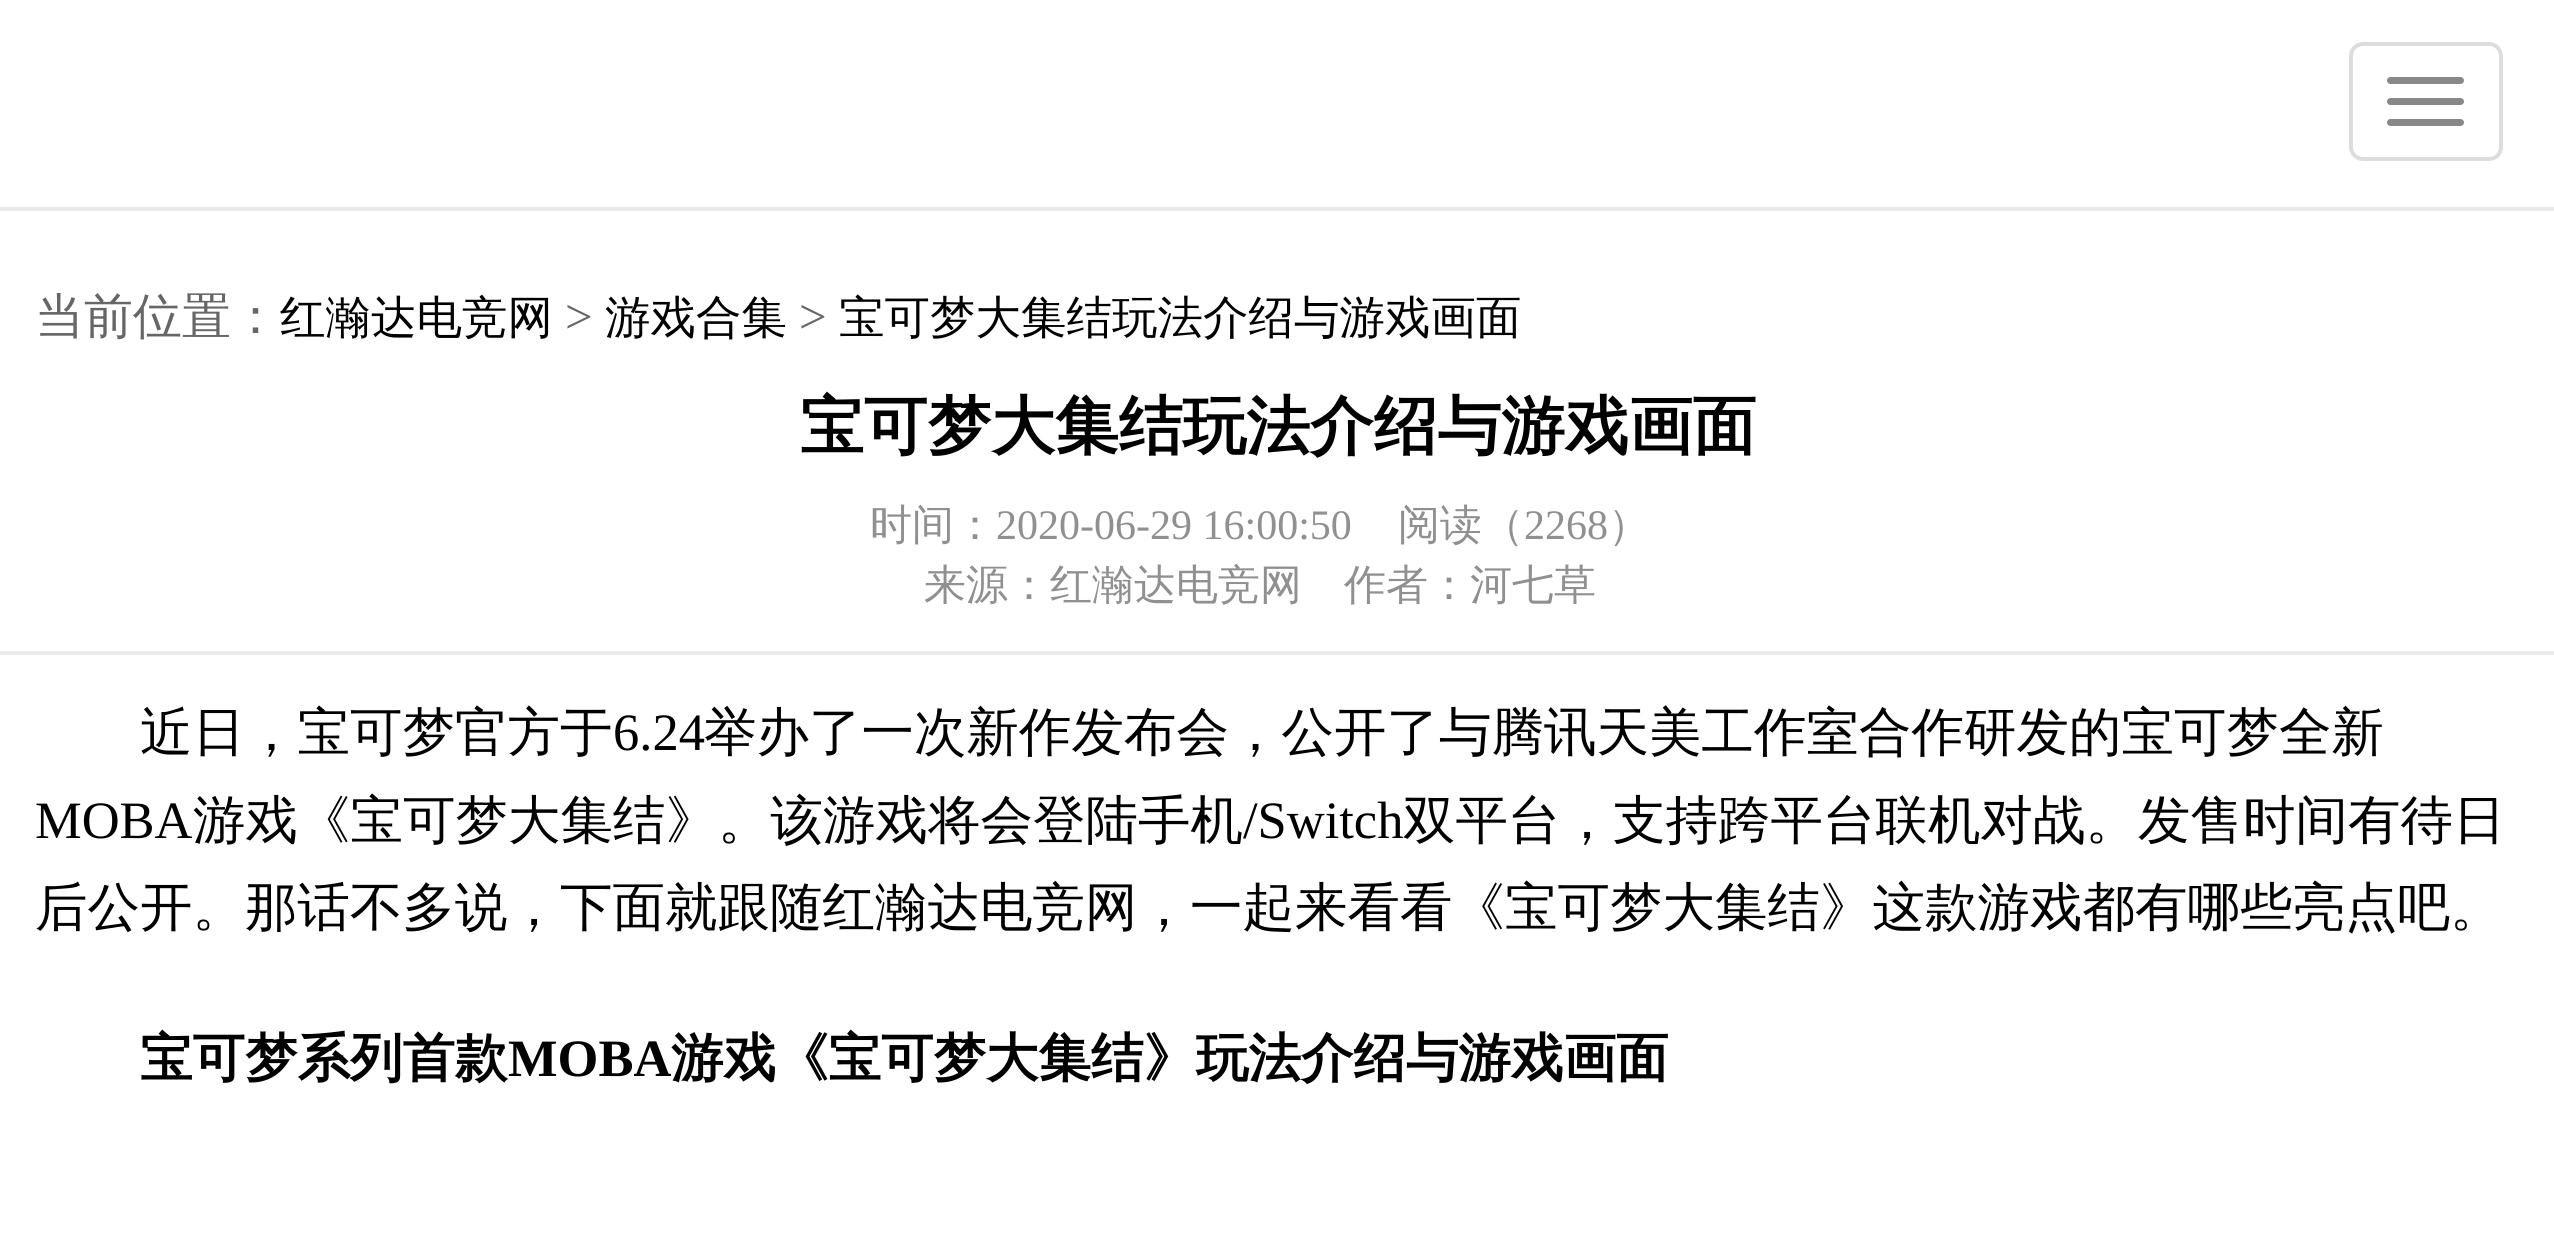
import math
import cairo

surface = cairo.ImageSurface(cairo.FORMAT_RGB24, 2554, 1259)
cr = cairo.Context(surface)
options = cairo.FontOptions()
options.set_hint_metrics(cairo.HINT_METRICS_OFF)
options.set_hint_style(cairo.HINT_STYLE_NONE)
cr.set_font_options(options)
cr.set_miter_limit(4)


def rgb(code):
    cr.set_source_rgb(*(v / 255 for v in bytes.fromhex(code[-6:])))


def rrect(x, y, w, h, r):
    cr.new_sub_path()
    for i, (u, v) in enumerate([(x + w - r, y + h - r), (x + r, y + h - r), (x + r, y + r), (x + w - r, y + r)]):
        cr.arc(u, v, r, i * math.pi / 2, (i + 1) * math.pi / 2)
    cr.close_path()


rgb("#ffffff")
cr.paint()
rgb("#eaeaea")
cr.rectangle(0, 207, 2554, 4)
cr.fill()
rrect(2351, 44, 150, 115, 12)
rgb("#dddddd")
cr.set_line_width(4)
cr.stroke()
rgb("#888888")
rrect(2387, 77, 77, 7, 3.5)
cr.fill()
rrect(2387, 98, 77, 7, 3.5)
cr.fill()
rrect(2387, 119, 77, 7, 3.5)
cr.fill()
rgb("#eaeaea")
cr.rectangle(0, 651, 2554, 4)
cr.fill()
cr.select_font_face("WenQuanYi Zen Hei Medium")
cr.set_font_size(49)
rgb("#666666")
cr.move_to(35, 333)
cr.show_text("当前位置：")
cr.set_font_size(45.5)
rgb("#000000")
cr.move_to(280, 333)
cr.show_text("红瀚达电竞网")
cr.select_font_face("Liberation Serif")
cr.set_font_size(49)
rgb("#666666")
cr.move_to(565, 333)
cr.show_text(">")
cr.select_font_face("WenQuanYi Zen Hei Medium")
cr.set_font_size(45.5)
rgb("#000000")
cr.move_to(605, 333)
cr.show_text("游戏合集")
cr.select_font_face("Liberation Serif")
cr.set_font_size(49)
rgb("#666666")
cr.move_to(799, 333)
cr.show_text(">")
cr.select_font_face("WenQuanYi Zen Hei Medium")
cr.set_font_size(45.5)
rgb("#000000")
cr.move_to(839, 333)
cr.show_text("宝可梦大集结玩法介绍与游戏画面")
cr.select_font_face("WenQuanYi Zen Hei", cairo.FONT_SLANT_NORMAL, cairo.FONT_WEIGHT_BOLD)
cr.set_font_size(63.75)
cr.move_to(800, 448)
cr.show_text("宝可梦大集结玩法介绍与游戏画面")
cr.select_font_face("WenQuanYi Zen Hei Medium")
cr.set_font_size(42)
rgb("#909090")
cr.move_to(870, 539)
cr.show_text("时间：")
cr.select_font_face("Liberation Serif")
cr.move_to(996, 539)
cr.show_text("2020-06-29 16:00:50")
cr.select_font_face("WenQuanYi Zen Hei Medium")
cr.move_to(1398, 539)
cr.show_text("阅读（")
cr.select_font_face("Liberation Serif")
cr.move_to(1524, 539)
cr.show_text("2268")
cr.select_font_face("WenQuanYi Zen Hei Medium")
for x, y, s in [
    (1608, 539, "）"),
    (924, 599, "来源：红瀚达电竞网"),
    (1344, 599, "作者：河七草"),
]:
    cr.move_to(x, y)
    cr.show_text(s)
cr.set_font_size(52.5)
rgb("#000000")
cr.move_to(140, 750)
cr.show_text("近日，宝可梦官方于")
cr.select_font_face("Liberation Serif")
cr.move_to(613, 750)
cr.show_text("6.24")
cr.select_font_face("WenQuanYi Zen Hei Medium")
cr.move_to(704, 750)
cr.show_text("举办了一次新作发布会，公开了与腾讯天美工作室合作研发的宝可梦全新")
cr.select_font_face("Liberation Serif")
cr.move_to(35, 838)
cr.show_text("MOBA")
cr.select_font_face("WenQuanYi Zen Hei Medium")
cr.move_to(193, 838)
cr.show_text("游戏《宝可梦大集结》。该游戏将会登陆手机")
cr.select_font_face("Liberation Serif")
cr.move_to(1243, 838)
cr.show_text("/Switch")
cr.select_font_face("WenQuanYi Zen Hei Medium")
cr.move_to(1403, 838)
cr.show_text("双平台，支持跨平台联机对战。发售时间有待日")
cr.move_to(35, 925)
cr.show_text("后公开。那话不多说，下面就跟随红瀚达电竞网，一起来看看《宝可梦大集结》这款游戏都有哪些亮点吧。")
cr.select_font_face("WenQuanYi Zen Hei", cairo.FONT_SLANT_NORMAL, cairo.FONT_WEIGHT_BOLD)
cr.move_to(140, 1076)
cr.show_text("宝可梦系列首款")
cr.select_font_face("Liberation Serif", cairo.FONT_SLANT_NORMAL, cairo.FONT_WEIGHT_BOLD)
cr.move_to(508, 1076)
cr.show_text("MOBA")
cr.select_font_face("WenQuanYi Zen Hei", cairo.FONT_SLANT_NORMAL, cairo.FONT_WEIGHT_BOLD)
cr.move_to(671, 1076)
cr.show_text("游戏《宝可梦大集结》玩法介绍与游戏画面")
surface.write_to_png("page.png")
